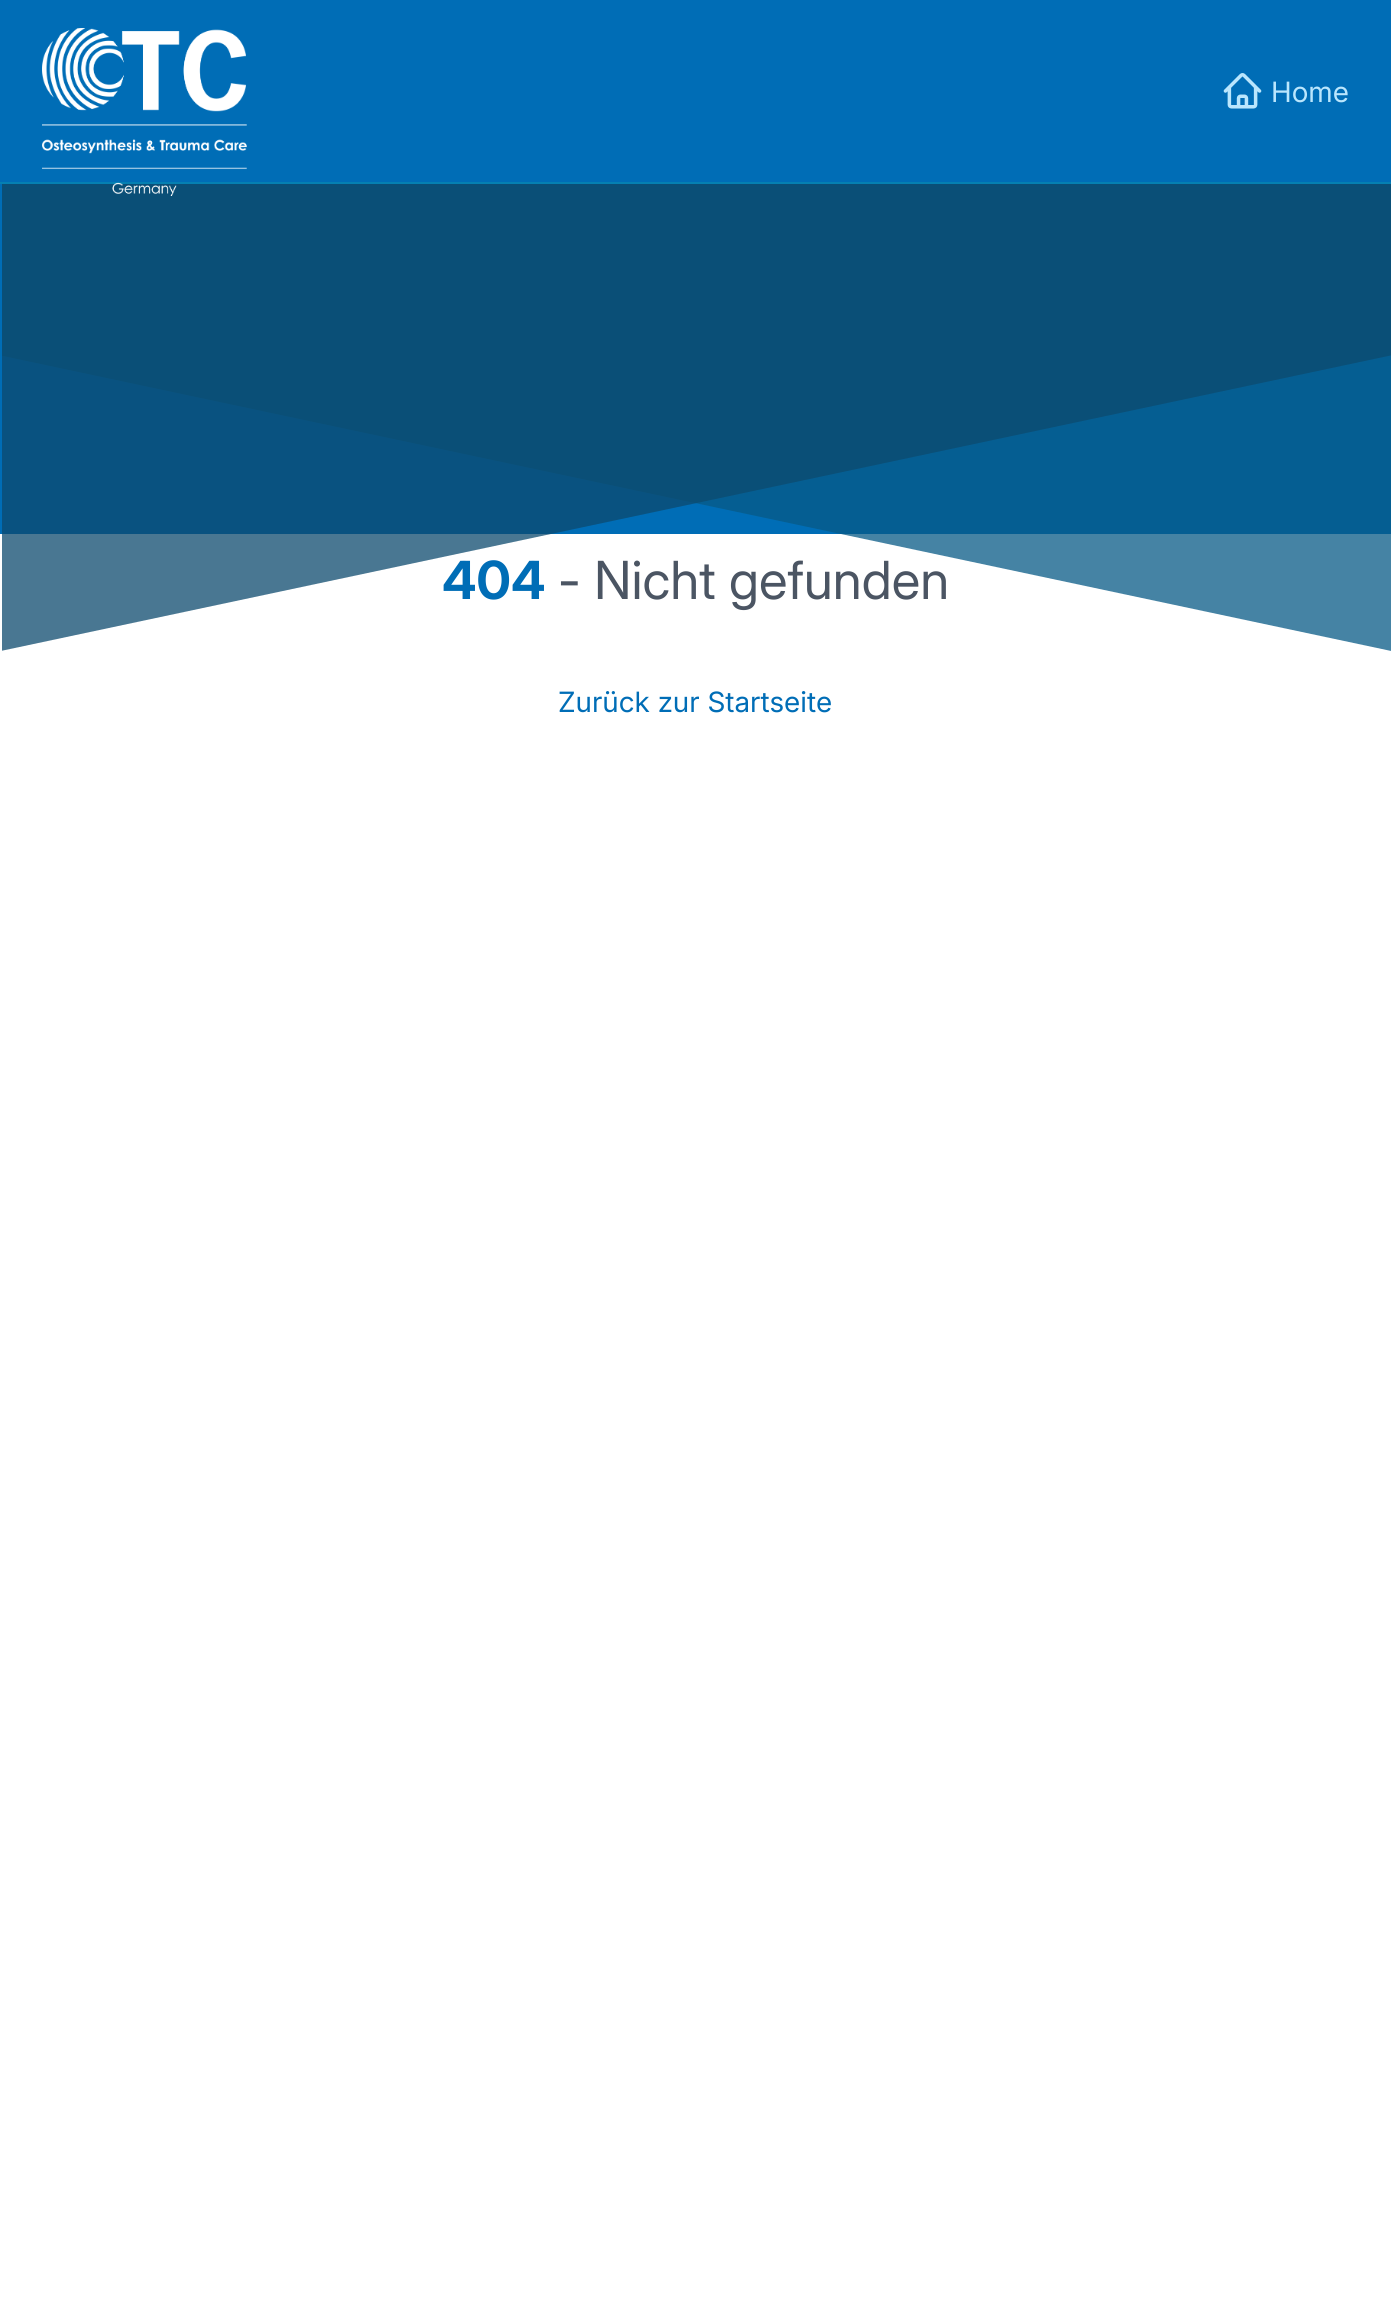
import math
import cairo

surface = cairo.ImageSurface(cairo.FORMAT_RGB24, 1391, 2323)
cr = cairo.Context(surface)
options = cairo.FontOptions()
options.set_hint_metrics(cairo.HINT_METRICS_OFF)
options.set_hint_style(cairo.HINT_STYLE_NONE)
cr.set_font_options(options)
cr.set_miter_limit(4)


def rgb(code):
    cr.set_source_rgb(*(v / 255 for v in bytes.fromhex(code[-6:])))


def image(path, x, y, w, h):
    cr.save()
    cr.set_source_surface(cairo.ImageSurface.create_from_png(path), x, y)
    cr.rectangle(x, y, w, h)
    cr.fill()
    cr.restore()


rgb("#ffffff")
cr.paint()
rgb("#006db6")
cr.rectangle(0, 0, 1391, 534)
cr.fill()
rgb("#0580b2")
cr.rectangle(0, 182, 1391, 2)
cr.fill()
cr.save()
cr.rectangle(2, 184, 1389, 539)
cr.clip()
cr.set_source_rgba(0.027, 0.349, 0.522, 0.75)
cr.new_path()
cr.move_to(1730, 723)
cr.line_to(-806, 184)
cr.line_to(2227, 184)
cr.line_to(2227, 723)
cr.close_path()
cr.fill()
cr.set_source_rgba(0.047, 0.29, 0.431, 0.75)
cr.new_path()
cr.move_to(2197, 184)
cr.line_to(-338, 723)
cr.line_to(-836, 723)
cr.line_to(-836, 184)
cr.close_path()
cr.fill()
cr.restore()
image("img/1.png", 42, 28, 205, 168)
image("img/2.png", 1223, 73, 39, 36)
cr.select_font_face("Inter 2")
cr.set_font_size(28)
rgb("#bae6fd")
cr.move_to(1271, 102)
cr.show_text("Home")
cr.select_font_face("Inter", cairo.FONT_SLANT_NORMAL, cairo.FONT_WEIGHT_BOLD)
cr.set_font_size(52.5)
rgb("#006db6")
cr.move_to(442, 599)
cr.show_text("404")
cr.select_font_face("Inter")
rgb("#4b5563")
cr.move_to(558, 599)
cr.show_text("- Nicht gefunden")
cr.select_font_face("Inter 2")
cr.set_font_size(28)
rgb("#006db6")
cr.move_to(558, 712)
cr.show_text("Zurück zur Startseite")
surface.write_to_png("page.png")
